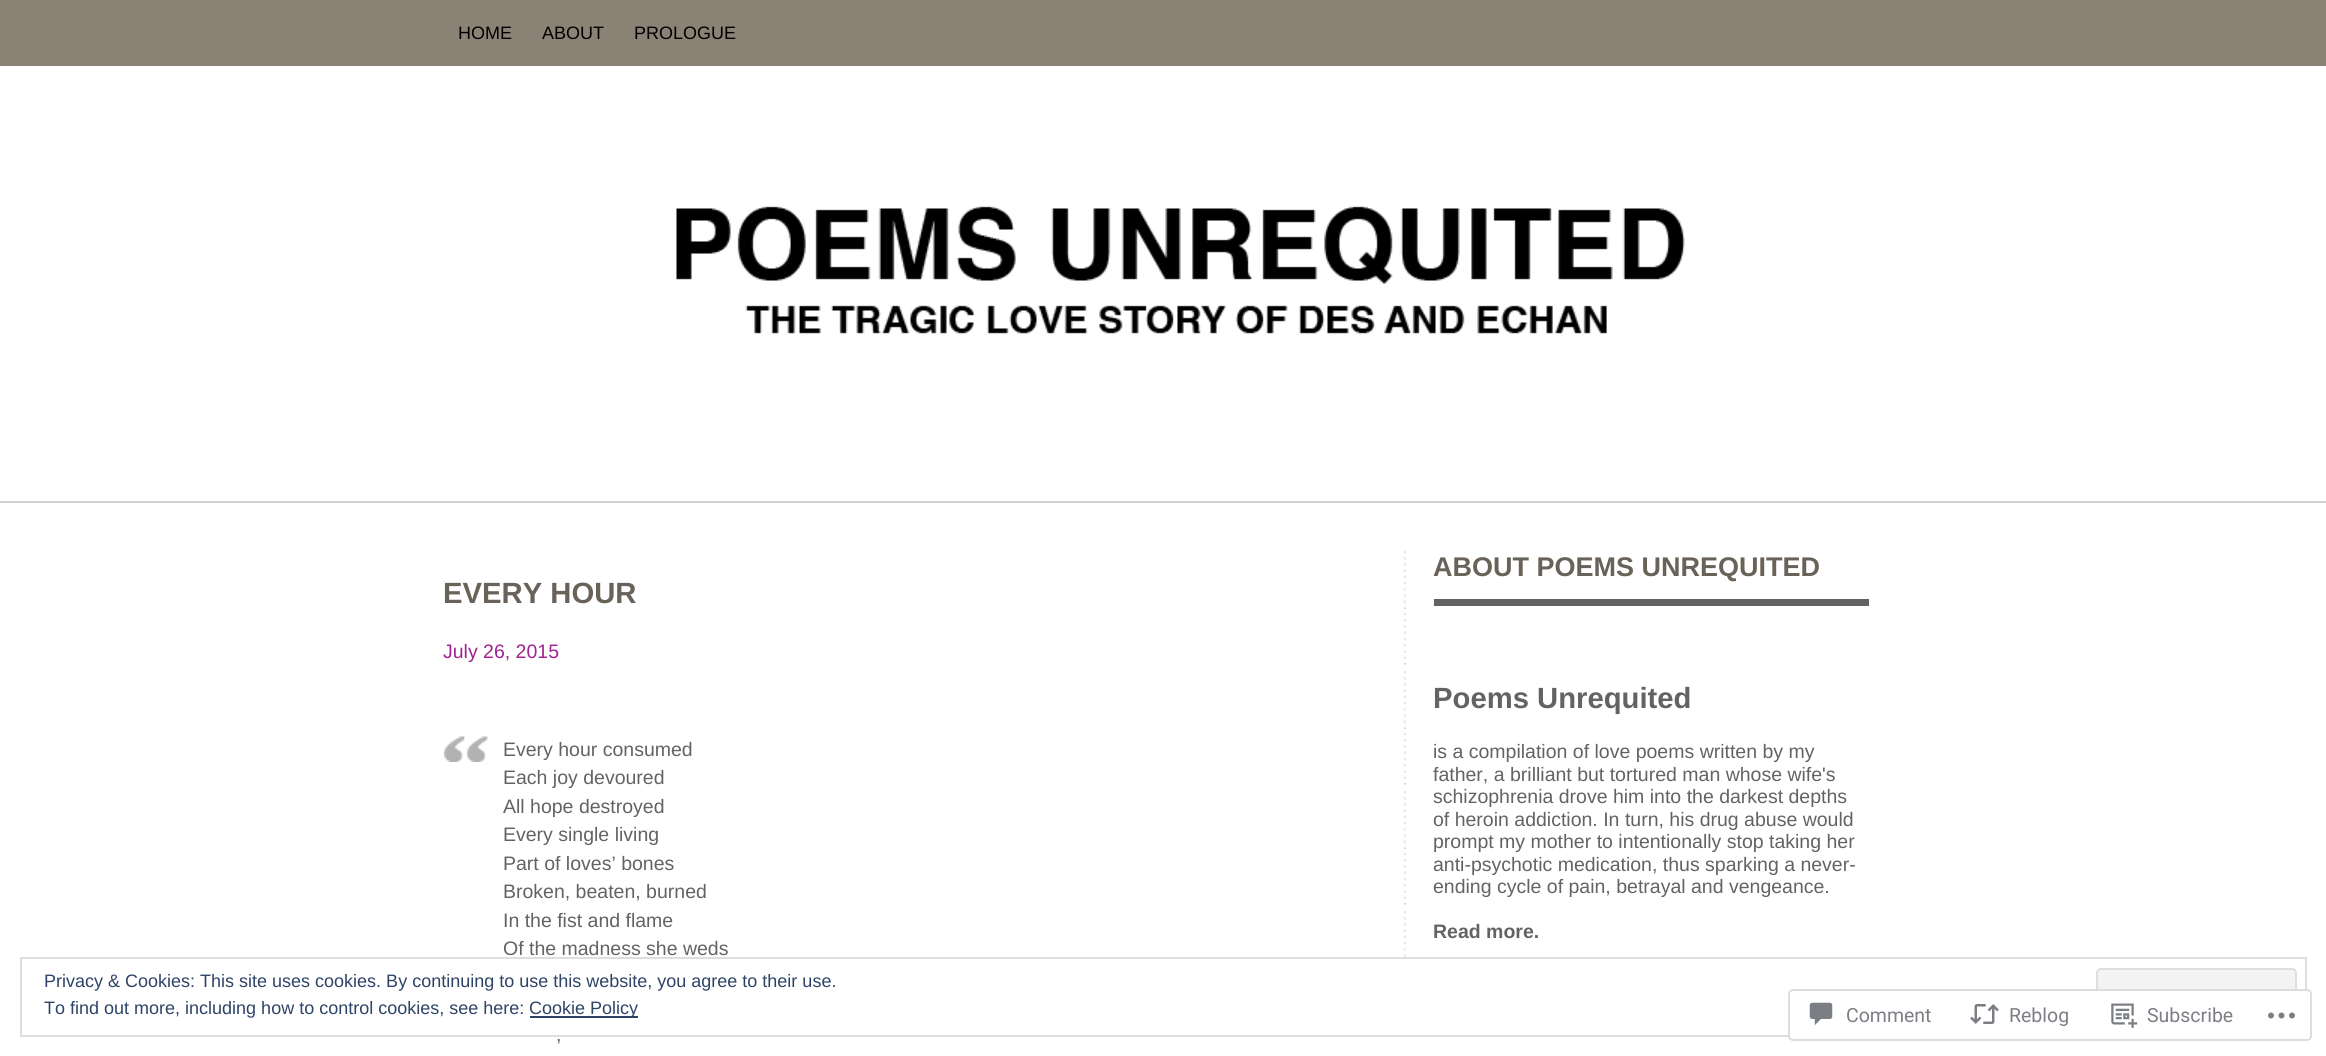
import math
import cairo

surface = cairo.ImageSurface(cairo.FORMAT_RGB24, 2326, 1056)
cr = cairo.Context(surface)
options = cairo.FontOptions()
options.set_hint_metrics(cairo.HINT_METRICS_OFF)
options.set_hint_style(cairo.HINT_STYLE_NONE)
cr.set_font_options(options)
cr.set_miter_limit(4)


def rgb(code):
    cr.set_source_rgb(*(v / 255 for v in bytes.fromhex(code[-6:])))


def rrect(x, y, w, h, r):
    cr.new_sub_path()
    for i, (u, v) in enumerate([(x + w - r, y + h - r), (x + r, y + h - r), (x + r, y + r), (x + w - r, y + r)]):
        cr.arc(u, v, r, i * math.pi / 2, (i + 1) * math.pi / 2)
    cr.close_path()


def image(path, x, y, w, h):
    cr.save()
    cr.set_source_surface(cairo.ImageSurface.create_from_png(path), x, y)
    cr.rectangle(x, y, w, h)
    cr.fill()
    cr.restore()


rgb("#ffffff")
cr.paint()
rgb("#8a8375")
cr.rectangle(0, 0, 2326, 66)
cr.fill()
rgb("#ccd1d6")
cr.rectangle(0, 501, 2326, 2)
cr.fill()
image("img/1.png", 676, 206, 1009, 128)
cr.rectangle(21, 958, 2285, 78)
rgb("#dedede")
cr.stroke()
rgb("#f3f3f3")
rrect(2097, 969, 199, 56, 4)
cr.fill_preserve()
rgb("#dedede")
cr.stroke()
rgb("#2e4467")
cr.rectangle(530, 1016, 108, 2)
cr.fill()
image("img/2.png", 1403, 550, 4, 407)
image("img/3.png", 444, 736, 44, 26)
rgb("#636363")
cr.rectangle(1434, 599, 435, 7)
cr.fill()
cr.set_source_rgba(1, 1, 1, 0.98)
rrect(1788, 989, 524, 52, 5)
cr.fill()
rrect(1789, 990, 522, 50, 4)
cr.set_source_rgba(0.863, 0.863, 0.871, 0.98)
cr.stroke()
image("img/4.png", 1809, 1002, 24, 24)
image("img/5.png", 1970, 1004, 29, 20)
image("img/6.png", 2111, 1003, 27, 25)
image("img/7.png", 2268, 1012, 27, 7)
cr.select_font_face("Liberation Sans")
cr.set_font_size(18)
rgb("#000000")
for x, y, s in [
    (458, 39, "HOME"),
    (542, 39, "ABOUT"),
    (634, 39, "PROLOGUE"),
]:
    cr.move_to(x, y)
    cr.show_text(s)
rgb("#2e4467")
for x, y, s in [
    (44, 987, "Privacy & Cookies: This site uses cookies. By continuing to use this website, you agree to their use."),
    (44, 1014, "To find out more, including how to control cookies, see here:"),
    (529, 1014, "Cookie Policy"),
]:
    cr.move_to(x, y)
    cr.show_text(s)
cr.select_font_face("Liberation Sans", cairo.FONT_SLANT_NORMAL, cairo.FONT_WEIGHT_BOLD)
cr.set_font_size(29.25)
rgb("#686259")
cr.move_to(443, 603)
cr.show_text("EVERY HOUR")
cr.select_font_face("Liberation Sans")
cr.set_font_size(19.5)
rgb("#9f2390")
cr.move_to(443, 658)
cr.show_text("July 26, 2015")
rgb("#636363")
for x, y, s in [
    (503, 756, "Every hour consumed"),
    (503, 784, "Each joy devoured"),
    (503, 813, "All hope destroyed"),
    (503, 841, "Every single living"),
    (503, 870, "Part of loves’ bones"),
    (503, 898, "Broken, beaten, burned"),
    (503, 927, "In the fist and flame"),
    (503, 955, "Of the madness she weds"),
    (556, 1041, ","),
]:
    cr.move_to(x, y)
    cr.show_text(s)
cr.select_font_face("Liberation Sans", cairo.FONT_SLANT_NORMAL, cairo.FONT_WEIGHT_BOLD)
cr.set_font_size(27)
rgb("#686259")
cr.move_to(1433, 576)
cr.show_text("ABOUT POEMS UNREQUITED")
cr.set_font_size(29.25)
rgb("#636363")
cr.move_to(1433, 708)
cr.show_text("Poems Unrequited")
cr.select_font_face("Liberation Sans")
cr.set_font_size(19.5)
for x, y, s in [
    (1433, 758, "is a compilation of love poems written by my"),
    (1433, 781, "father, a brilliant but tortured man whose wife's"),
    (1433, 803, "schizophrenia drove him into the darkest depths"),
    (1433, 826, "of heroin addiction. In turn, his drug abuse would"),
    (1433, 848, "prompt my mother to intentionally stop taking her"),
    (1433, 871, "anti-psychotic medication, thus sparking a never-"),
    (1433, 893, "ending cycle of pain, betrayal and vengeance."),
]:
    cr.move_to(x, y)
    cr.show_text(s)
cr.select_font_face("Liberation Sans", cairo.FONT_SLANT_NORMAL, cairo.FONT_WEIGHT_BOLD)
cr.move_to(1433, 938)
cr.show_text("Read more.")
cr.select_font_face("Roboto")
rgb("#7b7f85")
for x, y, s in [
    (1846, 1022, "Comment"),
    (2009, 1022, "Reblog"),
    (2147, 1022, "Subscribe"),
]:
    cr.move_to(x, y)
    cr.show_text(s)
surface.write_to_png("page.png")
